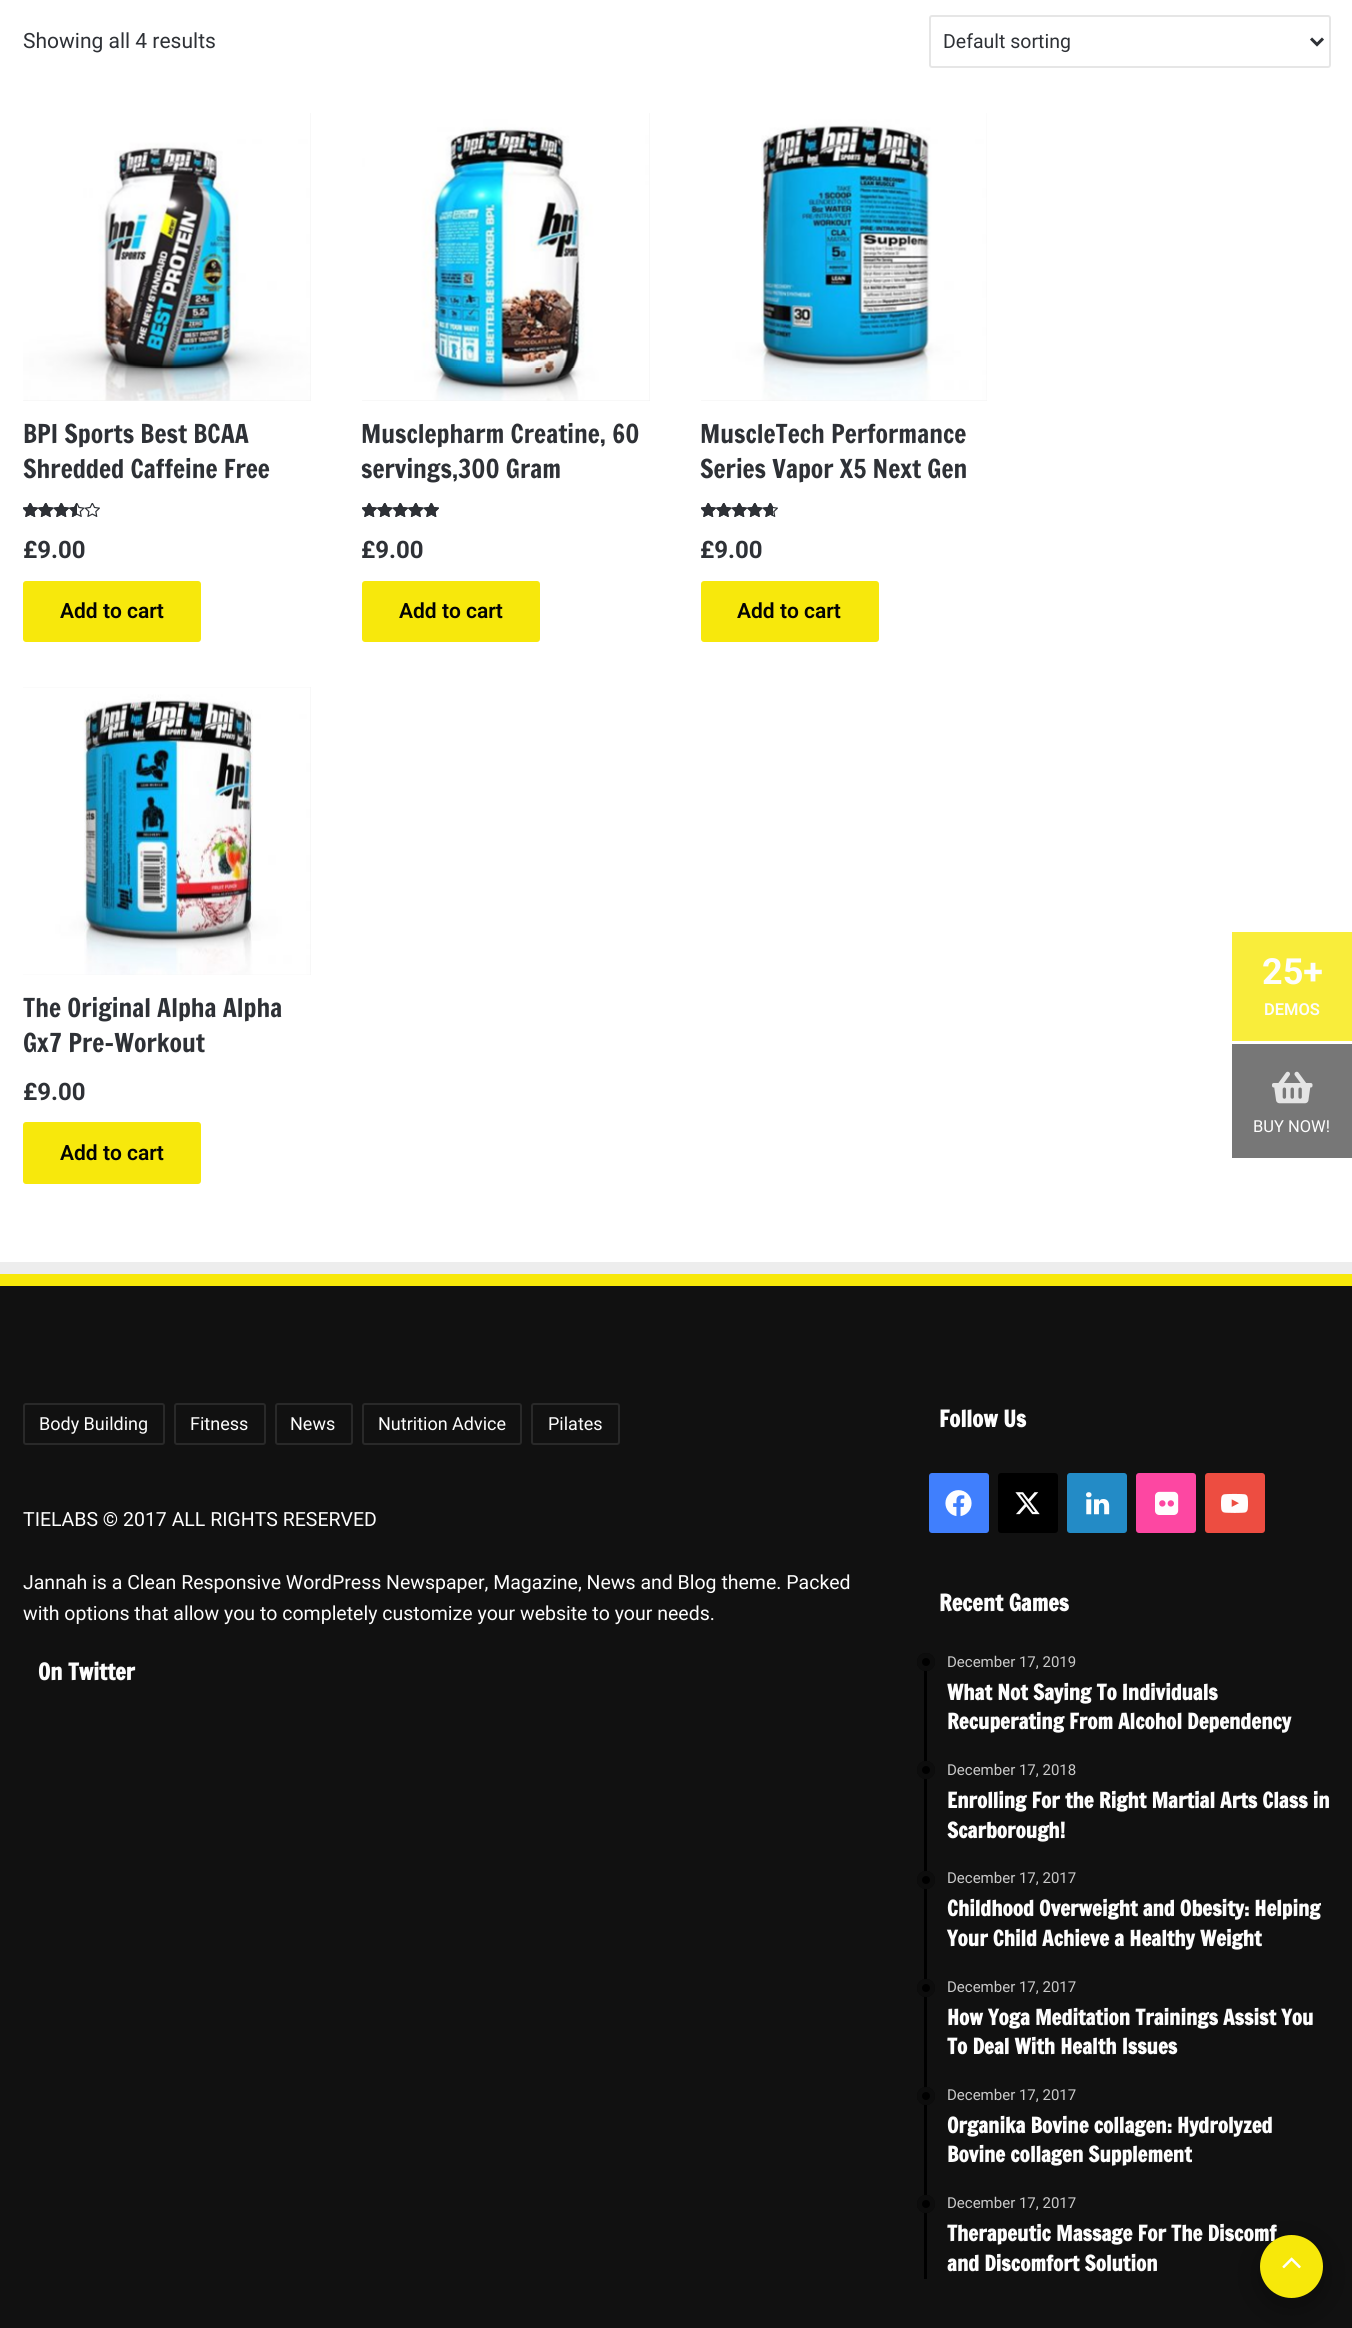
import math
import cairo

surface = cairo.ImageSurface(cairo.FORMAT_RGB24, 1352, 2328)
cr = cairo.Context(surface)
options = cairo.FontOptions()
options.set_hint_metrics(cairo.HINT_METRICS_OFF)
options.set_hint_style(cairo.HINT_STYLE_NONE)
cr.set_font_options(options)
cr.set_miter_limit(4)


def rgb(code):
    cr.set_source_rgb(*(v / 255 for v in bytes.fromhex(code[-6:])))


def rrect(x, y, w, h, r):
    cr.new_sub_path()
    for i, (u, v) in enumerate([(x + w - r, y + h - r), (x + r, y + h - r), (x + r, y + r), (x + w - r, y + r)]):
        cr.arc(u, v, r, i * math.pi / 2, (i + 1) * math.pi / 2)
    cr.close_path()


def soft_shadow(x, y, w, h, r, blur, alpha):
    cr.push_group_with_content(cairo.CONTENT_ALPHA)
    cr.set_operator(cairo.OPERATOR_SOURCE)
    for i in range(15, -16, -2):
        e = blur * i / 6
        if min(w, h) + 2 * e > 0:
            cr.set_source_rgba(0, 0, 0, alpha * math.erfc((i - 1) / 8.5) / 2)
            rrect(x - e, y - e, w + 2 * e, h + 2 * e, max(0, min(r + e + blur * .6, min(w, h) / 2 + e)))
            cr.fill()
    cr.mask(cr.pop_group())


def image(path, x, y, w, h):
    cr.save()
    cr.set_source_surface(cairo.ImageSurface.create_from_png(path), x, y)
    cr.rectangle(x, y, w, h)
    cr.fill()
    cr.restore()


rgb("#ffffff")
cr.paint()
rrect(930, 16, 400, 51, 2)
rgb("#e6e6e6")
cr.stroke()
cr.new_path()
cr.move_to(1311, 38.5)
cr.line_to(1317, 44.5)
cr.line_to(1323, 38.5)
rgb("#2e3136")
cr.set_line_width(3)
cr.stroke()
rgb("#f1f1f1")
cr.rectangle(23, 113, 288, 288)
cr.fill()
image("img/1.png", 23, 113, 288, 288)
image("img/2.png", 23, 503, 77, 14)
image("img/3.png", 23, 503, 54, 14)
rgb("#f7e80c")
rrect(23, 581, 178, 61, 3)
cr.fill()
rgb("#f1f1f1")
cr.rectangle(362, 113, 288, 288)
cr.fill()
image("img/4.png", 362, 113, 288, 288)
image("img/2.png", 362, 503, 77, 14)
image("img/5.png", 362, 503, 77, 14)
rgb("#f7e80c")
rrect(362, 581, 178, 61, 3)
cr.fill()
rgb("#f1f1f1")
cr.rectangle(701, 113, 286, 288)
cr.fill()
image("img/6.png", 701, 113, 286, 288)
image("img/2.png", 701, 503, 77, 14)
image("img/7.png", 701, 503, 72, 14)
rgb("#f7e80c")
rrect(701, 581, 178, 61, 3)
cr.fill()
rgb("#f1f1f1")
cr.rectangle(23, 687, 288, 288)
cr.fill()
image("img/8.png", 23, 687, 288, 288)
rgb("#f7e80c")
rrect(23, 1122, 178, 62, 3)
cr.fill()
for x, y, w, h, color in [
    (0, 1286, 1352, 1042, "#111111"),
    (0, 1262, 1352, 12, "#ededed"),
    (0, 1274, 1352, 12, "#f7e80a"),
]:
    rgb(color)
    cr.rectangle(x, y, w, h)
    cr.fill()
rrect(24, 1404, 140, 40, 2)
rgb("#292929")
cr.set_line_width(2)
cr.stroke()
rrect(175, 1404, 90, 40, 2)
cr.stroke()
rrect(276, 1404, 76, 40, 2)
cr.stroke()
rrect(363, 1404, 158, 40, 2)
cr.stroke()
rrect(532, 1404, 87, 40, 2)
cr.stroke()
rgb("#407ffd")
rrect(929, 1473, 60, 60, 3)
cr.fill()
image("img/9.png", 945, 1490, 27, 27)
rgb("#000000")
rrect(998, 1473, 60, 60, 3)
cr.fill()
image("img/10.png", 1015, 1492, 25, 23)
rgb("#238bc6")
rrect(1067, 1473, 60, 60, 3)
cr.fill()
image("img/11.png", 1086, 1492, 24, 23)
rgb("#fd47a2")
rrect(1136, 1473, 60, 60, 3)
cr.fill()
image("img/12.png", 1155, 1491, 24, 24)
rgb("#ed4d41")
rrect(1205, 1473, 60, 60, 3)
cr.fill()
image("img/13.png", 1221, 1493, 27, 20)
rgb("#000000")
cr.rectangle(924, 1653, 3, 626)
cr.fill()
cr.arc(926, 1662, 9, 0, 2 * math.pi)
cr.fill()
cr.arc(926, 1662, 6.5, 0, 2 * math.pi)
cr.set_source_rgba(0.067, 0.067, 0.067, 0.8)
cr.set_line_width(5)
cr.stroke()
rgb("#000000")
cr.arc(926, 1770, 9, 0, 2 * math.pi)
cr.fill()
cr.arc(926, 1770, 6.5, 0, 2 * math.pi)
cr.set_source_rgba(0.067, 0.067, 0.067, 0.8)
cr.stroke()
rgb("#000000")
cr.arc(926, 1880, 9, 0, 2 * math.pi)
cr.fill()
cr.arc(926, 1880, 6.5, 0, 2 * math.pi)
cr.set_source_rgba(0.067, 0.067, 0.067, 0.8)
cr.stroke()
rgb("#000000")
cr.arc(926, 1988, 9, 0, 2 * math.pi)
cr.fill()
cr.arc(926, 1988, 6.5, 0, 2 * math.pi)
cr.set_source_rgba(0.067, 0.067, 0.067, 0.8)
cr.stroke()
rgb("#000000")
cr.arc(926, 2096, 9, 0, 2 * math.pi)
cr.fill()
cr.arc(926, 2096, 6.5, 0, 2 * math.pi)
cr.set_source_rgba(0.067, 0.067, 0.067, 0.8)
cr.stroke()
rgb("#000000")
cr.arc(926, 2204, 9, 0, 2 * math.pi)
cr.fill()
cr.arc(926, 2204, 6.5, 0, 2 * math.pi)
cr.set_source_rgba(0.067, 0.067, 0.067, 0.8)
cr.stroke()
rgb("#000000")
soft_shadow(1260, 2243, 63, 63, 31.5, 19, 0.3)
rgb("#f9ed3b")
cr.rectangle(1232, 932, 120, 109)
cr.fill()
rgb("#777777")
cr.rectangle(1232, 1044, 120, 114)
cr.fill()
image("img/15.png", 1272, 1071, 41, 33)
cr.select_font_face("Roboto")
cr.set_font_size(21)
rgb("#2e3136")
cr.move_to(23, 48)
cr.show_text("Showing all 4 results")
cr.set_font_size(19.5)
cr.move_to(943, 48)
cr.show_text("Default sorting")
cr.select_font_face("Francois One")
cr.set_font_size(25.5)
cr.move_to(23, 443)
cr.show_text("BPI Sports Best BCAA")
cr.move_to(23, 478)
cr.show_text("Shredded Caffeine Free")
cr.select_font_face("Roboto", cairo.FONT_SLANT_NORMAL, cairo.FONT_WEIGHT_BOLD)
cr.set_font_size(24)
cr.move_to(23, 558)
cr.show_text("£9.00")
cr.select_font_face("Roboto SemiBold")
cr.set_font_size(21)
rgb("#030303")
cr.move_to(60, 618)
cr.show_text("Add to cart")
cr.select_font_face("Francois One")
cr.set_font_size(25.5)
rgb("#2e3136")
cr.move_to(361, 443)
cr.show_text("Musclepharm Creatine, 60")
cr.move_to(361, 478)
cr.show_text("servings,300 Gram")
cr.select_font_face("Roboto", cairo.FONT_SLANT_NORMAL, cairo.FONT_WEIGHT_BOLD)
cr.set_font_size(24)
cr.move_to(361, 558)
cr.show_text("£9.00")
cr.select_font_face("Roboto SemiBold")
cr.set_font_size(21)
rgb("#030303")
cr.move_to(399, 618)
cr.show_text("Add to cart")
cr.select_font_face("Francois One")
cr.set_font_size(25.5)
rgb("#2e3136")
cr.move_to(700, 443)
cr.show_text("MuscleTech Performance")
cr.move_to(700, 478)
cr.show_text("Series Vapor X5 Next Gen")
cr.select_font_face("Roboto", cairo.FONT_SLANT_NORMAL, cairo.FONT_WEIGHT_BOLD)
cr.set_font_size(24)
cr.move_to(700, 558)
cr.show_text("£9.00")
cr.select_font_face("Roboto SemiBold")
cr.set_font_size(21)
rgb("#030303")
cr.move_to(737, 618)
cr.show_text("Add to cart")
cr.select_font_face("Francois One")
cr.set_font_size(25.5)
rgb("#2e3136")
cr.move_to(23, 1017)
cr.show_text("The Original Alpha Alpha")
cr.move_to(23, 1052)
cr.show_text("Gx7 Pre-Workout")
cr.select_font_face("Roboto", cairo.FONT_SLANT_NORMAL, cairo.FONT_WEIGHT_BOLD)
cr.set_font_size(24)
cr.move_to(23, 1100)
cr.show_text("£9.00")
cr.select_font_face("Roboto SemiBold")
cr.set_font_size(21)
rgb("#030303")
cr.move_to(60, 1160)
cr.show_text("Add to cart")
cr.select_font_face("Roboto")
cr.set_font_size(18)
rgb("#fdfdfd")
for x, y, s in [
    (39, 1430, "Body Building"),
    (190, 1430, "Fitness"),
    (290, 1430, "News"),
    (378, 1430, "Nutrition Advice"),
    (548, 1430, "Pilates"),
]:
    cr.move_to(x, y)
    cr.show_text(s)
cr.set_font_size(19.5)
for x, y, s in [
    (23, 1526, "TIELABS © 2017 ALL RIGHTS RESERVED"),
    (23, 1589, "Jannah is a Clean Responsive WordPress Newspaper, Magazine, News and Blog theme. Packed"),
    (23, 1620, "with options that allow you to completely customize your website to your needs."),
]:
    cr.move_to(x, y)
    cr.show_text(s)
cr.select_font_face("Francois One", cairo.FONT_SLANT_NORMAL, cairo.FONT_WEIGHT_BOLD)
cr.set_font_size(22.5)
for x, y, s in [
    (38, 1680, "On Twitter"),
    (939, 1427, "Follow Us"),
    (939, 1611, "Recent Games"),
]:
    cr.move_to(x, y)
    cr.show_text(s)
cr.select_font_face("Roboto")
cr.set_font_size(15)
rgb("#cacaca")
cr.move_to(947, 1667)
cr.show_text("December 17, 2019")
cr.select_font_face("Francois One", cairo.FONT_SLANT_NORMAL, cairo.FONT_WEIGHT_BOLD)
cr.set_font_size(21)
rgb("#fdfdfd")
cr.move_to(947, 1700)
cr.show_text("What Not Saying To Individuals")
cr.move_to(947, 1729)
cr.show_text("Recuperating From Alcohol Dependency")
cr.select_font_face("Roboto")
cr.set_font_size(15)
rgb("#cacaca")
cr.move_to(947, 1775)
cr.show_text("December 17, 2018")
cr.select_font_face("Francois One", cairo.FONT_SLANT_NORMAL, cairo.FONT_WEIGHT_BOLD)
cr.set_font_size(21)
rgb("#fdfdfd")
cr.move_to(947, 1808)
cr.show_text("Enrolling For the Right Martial Arts Class in")
cr.move_to(947, 1838)
cr.show_text("Scarborough!")
cr.select_font_face("Roboto")
cr.set_font_size(15)
rgb("#cacaca")
cr.move_to(947, 1883)
cr.show_text("December 17, 2017")
cr.select_font_face("Francois One", cairo.FONT_SLANT_NORMAL, cairo.FONT_WEIGHT_BOLD)
cr.set_font_size(21)
rgb("#fdfdfd")
cr.move_to(947, 1916)
cr.show_text("Childhood Overweight and Obesity: Helping")
cr.move_to(947, 1946)
cr.show_text("Your Child Achieve a Healthy Weight")
cr.select_font_face("Roboto")
cr.set_font_size(15)
rgb("#cacaca")
cr.move_to(947, 1992)
cr.show_text("December 17, 2017")
cr.select_font_face("Francois One", cairo.FONT_SLANT_NORMAL, cairo.FONT_WEIGHT_BOLD)
cr.set_font_size(21)
rgb("#fdfdfd")
cr.move_to(947, 2025)
cr.show_text("How Yoga Meditation Trainings Assist You")
cr.move_to(947, 2054)
cr.show_text("To Deal With Health Issues")
cr.select_font_face("Roboto")
cr.set_font_size(15)
rgb("#cacaca")
cr.move_to(947, 2100)
cr.show_text("December 17, 2017")
cr.select_font_face("Francois One", cairo.FONT_SLANT_NORMAL, cairo.FONT_WEIGHT_BOLD)
cr.set_font_size(21)
rgb("#fdfdfd")
cr.move_to(947, 2133)
cr.show_text("Organika Bovine collagen: Hydrolyzed")
cr.move_to(947, 2162)
cr.show_text("Bovine collagen Supplement")
cr.select_font_face("Roboto")
cr.set_font_size(15)
rgb("#cacaca")
cr.move_to(947, 2208)
cr.show_text("December 17, 2017")
cr.select_font_face("Francois One", cairo.FONT_SLANT_NORMAL, cairo.FONT_WEIGHT_BOLD)
cr.set_font_size(21)
rgb("#fdfdfd")
cr.move_to(947, 2241)
cr.show_text("Therapeutic Massage For The Discomf")
cr.move_to(947, 2271)
cr.show_text("and Discomfort Solution")
rgb("#f7e80a")
cr.new_path()
cr.arc(1291.5, 2266.5, 31.5, 0, 2 * math.pi)
cr.fill()
image("img/14.png", 1282, 2257, 19, 12)
cr.select_font_face("Roboto", cairo.FONT_SLANT_NORMAL, cairo.FONT_WEIGHT_BOLD)
cr.set_font_size(36)
rgb("#fdfdfd")
cr.move_to(1262, 984)
cr.show_text("25+")
cr.select_font_face("Roboto SemiBold")
cr.set_font_size(16.5)
cr.move_to(1264, 1015)
cr.show_text("DEMOS")
cr.select_font_face("Roboto")
cr.move_to(1253, 1132)
cr.show_text("BUY NOW!")
surface.write_to_png("page.png")
